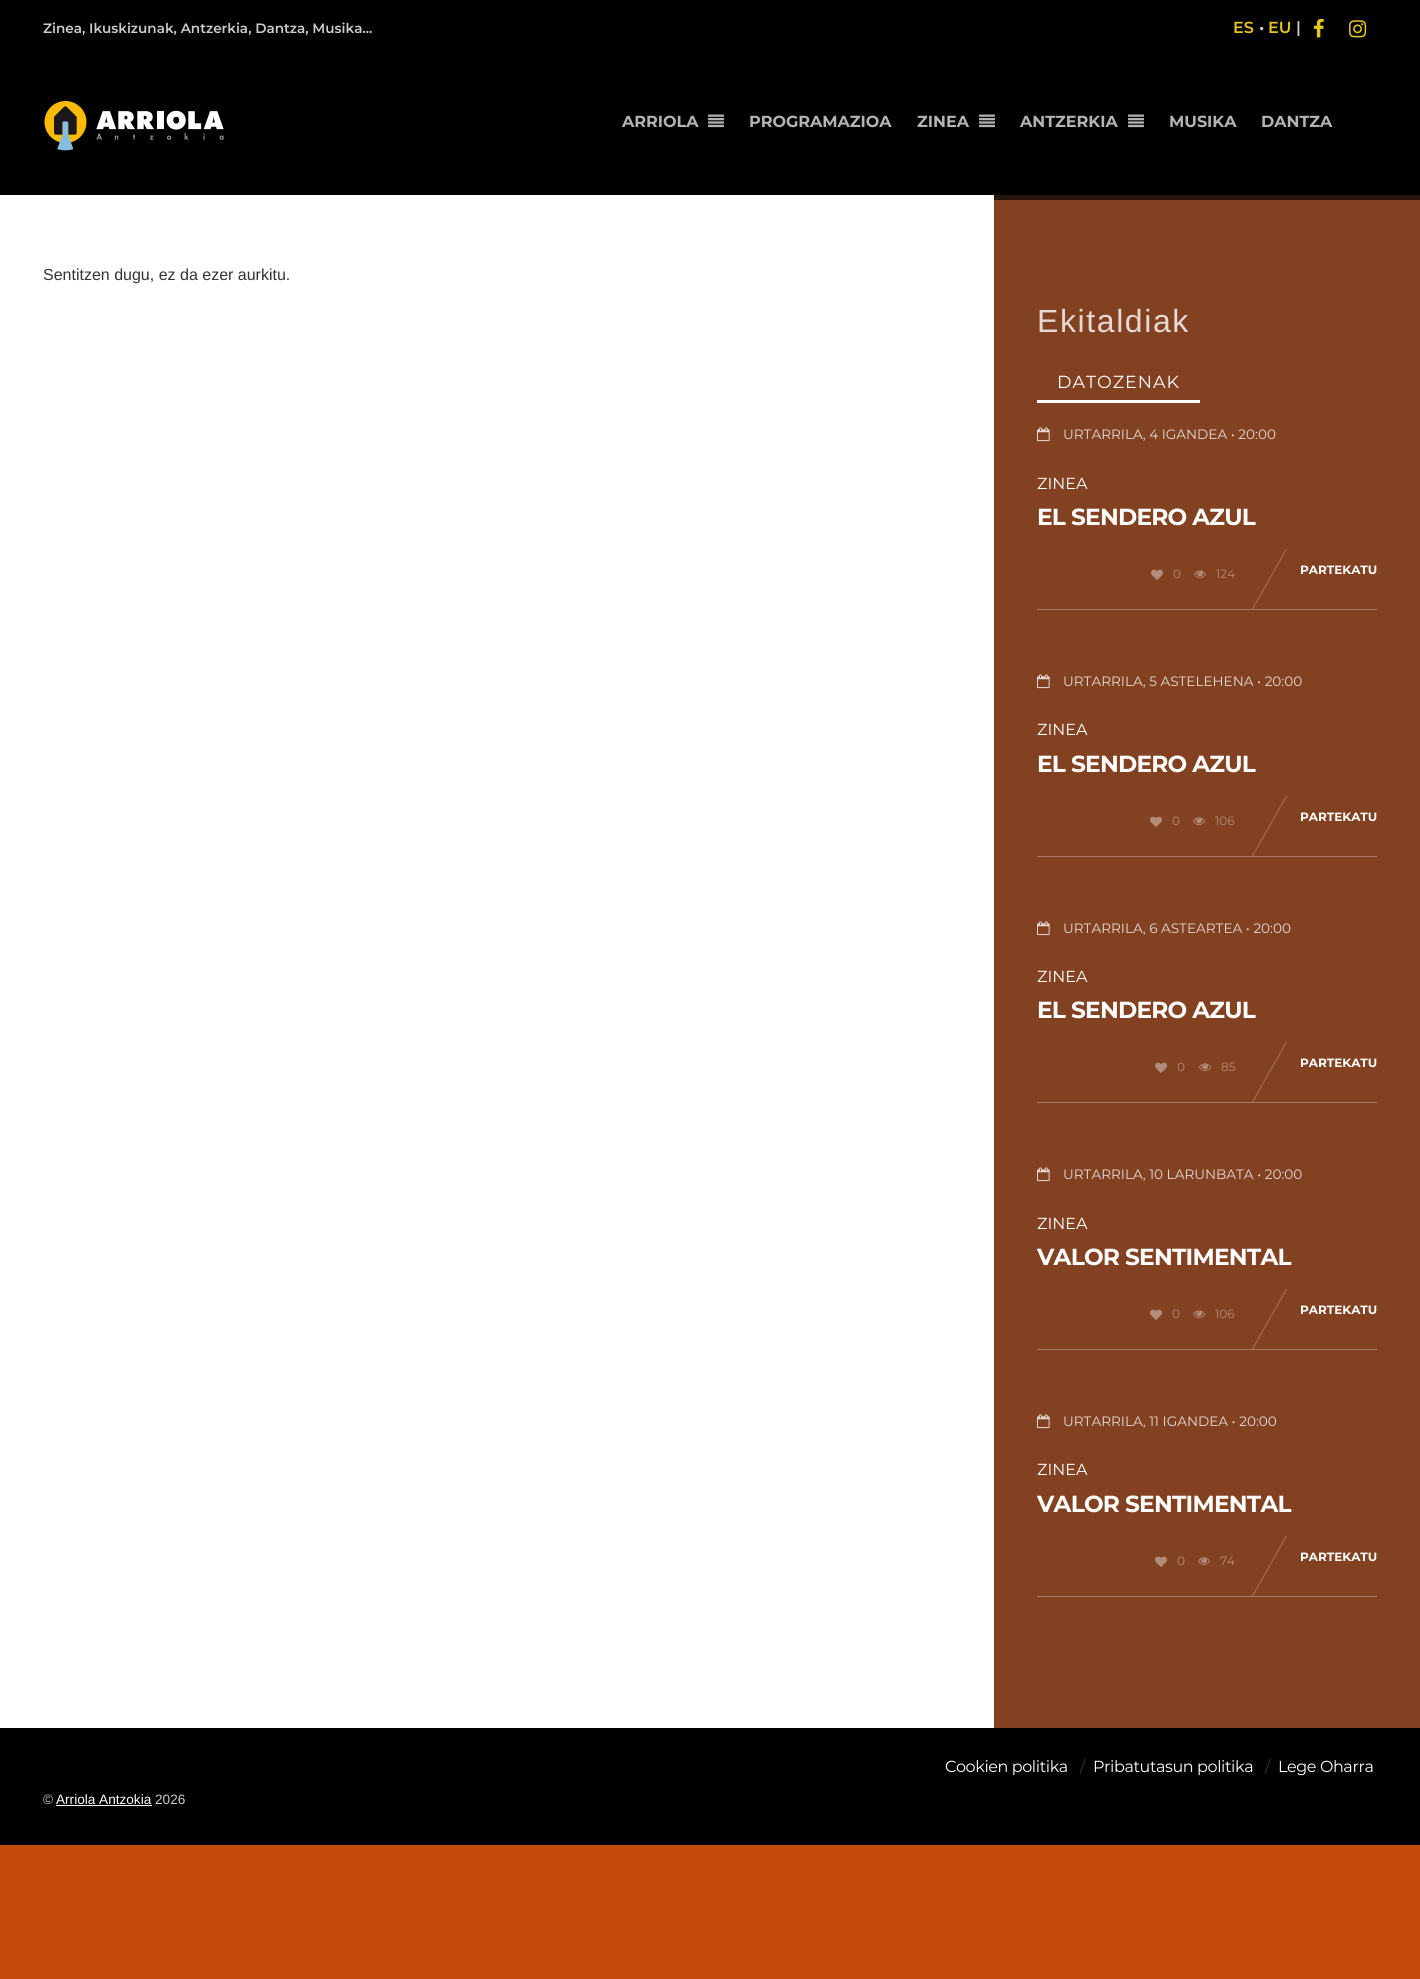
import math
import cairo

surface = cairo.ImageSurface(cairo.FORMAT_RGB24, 1420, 1979)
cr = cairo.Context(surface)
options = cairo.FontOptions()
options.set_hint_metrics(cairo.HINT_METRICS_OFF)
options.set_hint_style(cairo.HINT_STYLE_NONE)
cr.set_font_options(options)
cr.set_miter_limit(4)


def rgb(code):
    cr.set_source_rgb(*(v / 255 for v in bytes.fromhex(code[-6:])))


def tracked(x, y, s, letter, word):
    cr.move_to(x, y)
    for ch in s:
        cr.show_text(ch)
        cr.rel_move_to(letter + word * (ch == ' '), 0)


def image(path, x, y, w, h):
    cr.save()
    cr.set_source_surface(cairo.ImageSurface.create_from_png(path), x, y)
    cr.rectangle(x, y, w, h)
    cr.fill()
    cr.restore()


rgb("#c44b0c")
cr.paint()
rgb("#000000")
cr.rectangle(0, 0, 1420, 195)
cr.fill()
image("img/1.png", 1314, 18, 10, 20)
image("img/2.png", 1349, 20, 18, 18)
image("img/3.png", 44, 101, 180, 50)
image("img/4.png", 708, 114, 16, 14)
image("img/4.png", 979, 114, 16, 14)
image("img/4.png", 1128, 114, 16, 14)
for x, y, w, h, color in [
    (994, 200, 426, 1528, "#824121"),
    (994, 195, 426, 5, "#27140a"),
    (0, 195, 994, 1533, "#ffffff"),
    (1037, 400, 163, 3, "#ffffff"),
]:
    rgb(color)
    cr.rectangle(x, y, w, h)
    cr.fill()
image("img/5.png", 1037, 427, 13, 15)
rgb("#a87a64")
cr.rectangle(1037, 609, 340, 1)
cr.fill()
image("img/6.png", 1151, 569, 12, 11)
image("img/7.png", 1194, 570, 12, 8)
cr.new_path()
cr.move_to(1286, 549)
cr.line_to(1287, 549)
cr.line_to(1253, 609)
cr.line_to(1252, 609)
cr.close_path()
cr.fill()
image("img/5.png", 1037, 674, 13, 15)
cr.rectangle(1037, 856, 340, 1)
cr.fill()
image("img/6.png", 1150, 816, 12, 11)
image("img/7.png", 1193, 817, 12, 8)
cr.new_path()
cr.move_to(1286, 796)
cr.line_to(1287, 796)
cr.line_to(1253, 856)
cr.line_to(1252, 856)
cr.close_path()
cr.fill()
image("img/5.png", 1037, 921, 13, 15)
cr.rectangle(1037, 1102, 340, 1)
cr.fill()
image("img/6.png", 1155, 1062, 12, 11)
image("img/7.png", 1199, 1063, 12, 8)
cr.new_path()
cr.move_to(1286, 1042)
cr.line_to(1287, 1042)
cr.line_to(1253, 1102)
cr.line_to(1252, 1102)
cr.close_path()
cr.fill()
image("img/5.png", 1037, 1167, 13, 15)
cr.rectangle(1037, 1349, 340, 1)
cr.fill()
image("img/6.png", 1150, 1309, 12, 11)
image("img/7.png", 1193, 1310, 12, 8)
cr.new_path()
cr.move_to(1286, 1289)
cr.line_to(1287, 1289)
cr.line_to(1253, 1349)
cr.line_to(1252, 1349)
cr.close_path()
cr.fill()
image("img/5.png", 1037, 1414, 13, 15)
cr.rectangle(1037, 1596, 340, 1)
cr.fill()
image("img/6.png", 1155, 1556, 12, 11)
image("img/7.png", 1198, 1557, 12, 8)
cr.new_path()
cr.move_to(1286, 1536)
cr.line_to(1287, 1536)
cr.line_to(1253, 1596)
cr.line_to(1252, 1596)
cr.close_path()
cr.fill()
rgb("#000000")
cr.rectangle(0, 1728, 1420, 117)
cr.fill()
rgb("#ffffff")
cr.rectangle(56, 1805, 96, 1)
cr.fill()
cr.select_font_face("Montserrat SemiBold")
cr.set_font_size(13.6)
rgb("#cccccc")
cr.move_to(43, 33)
cr.show_text("Zinea, Ikuskizunak, Antzerkia, Dantza, Musika...")
cr.set_font_size(16)
rgb("#e6c715")
cr.move_to(1233, 33)
cr.show_text("ES")
rgb("#cccccc")
cr.move_to(1259, 33)
cr.show_text("•")
rgb("#e6c715")
cr.move_to(1268, 33)
cr.show_text("EU")
rgb("#cccccc")
cr.move_to(1296, 33)
cr.show_text("|")
cr.select_font_face("Montserrat", cairo.FONT_SLANT_NORMAL, cairo.FONT_WEIGHT_BOLD)
rgb("#b3b3b3")
for x, y, s in [
    (622, 127, "ARRIOLA"),
    (749, 127, "PROGRAMAZIOA"),
    (917, 127, "ZINEA"),
    (1020, 127, "ANTZERKIA"),
    (1169, 127, "MUSIKA"),
    (1261, 127, "DANTZA"),
]:
    cr.move_to(x, y)
    cr.show_text(s)
cr.select_font_face("Liberation Sans")
rgb("#333333")
cr.move_to(43, 280)
cr.show_text("Sentitzen dugu, ez da ezer aurkitu.")
cr.set_font_size(32)
rgb("#e6d9d3")
tracked(1037, 332, "Ekitaldiak", 1.6, 0)
cr.select_font_face("Montserrat")
cr.set_font_size(17.5)
rgb("#ffffff")
tracked(1057, 388, "DATOZENAK", 1, 0)
cr.set_font_size(13.6)
rgb("#e6d9d3")
cr.move_to(1063, 439)
cr.show_text("URTARRILA, 4 IGANDEA • 20:00")
cr.set_font_size(16)
rgb("#ffffff")
cr.move_to(1037, 489)
cr.show_text("ZINEA")
cr.select_font_face("Montserrat", cairo.FONT_SLANT_NORMAL, cairo.FONT_WEIGHT_BOLD)
cr.set_font_size(23.25)
tracked(1037, 525, "EL SENDERO AZUL", -0.75, 0)
cr.select_font_face("Montserrat")
cr.set_font_size(12)
rgb("#b48d7a")
cr.move_to(1173, 578)
cr.show_text("0")
cr.move_to(1216, 578)
cr.show_text("124")
cr.select_font_face("Montserrat", cairo.FONT_SLANT_NORMAL, cairo.FONT_WEIGHT_BOLD)
rgb("#ffffff")
cr.move_to(1300, 574)
cr.show_text("PARTEKATU")
cr.select_font_face("Montserrat")
cr.set_font_size(13.6)
rgb("#e6d9d3")
cr.move_to(1063, 686)
cr.show_text("URTARRILA, 5 ASTELEHENA • 20:00")
cr.set_font_size(16)
rgb("#ffffff")
cr.move_to(1037, 735)
cr.show_text("ZINEA")
cr.select_font_face("Montserrat", cairo.FONT_SLANT_NORMAL, cairo.FONT_WEIGHT_BOLD)
cr.set_font_size(23.25)
tracked(1037, 772, "EL SENDERO AZUL", -0.75, 0)
cr.select_font_face("Montserrat")
cr.set_font_size(12)
rgb("#b48d7a")
cr.move_to(1172, 825)
cr.show_text("0")
cr.move_to(1215, 825)
cr.show_text("106")
cr.select_font_face("Montserrat", cairo.FONT_SLANT_NORMAL, cairo.FONT_WEIGHT_BOLD)
rgb("#ffffff")
cr.move_to(1300, 821)
cr.show_text("PARTEKATU")
cr.select_font_face("Montserrat")
cr.set_font_size(13.6)
rgb("#e6d9d3")
cr.move_to(1063, 933)
cr.show_text("URTARRILA, 6 ASTEARTEA • 20:00")
cr.set_font_size(16)
rgb("#ffffff")
cr.move_to(1037, 982)
cr.show_text("ZINEA")
cr.select_font_face("Montserrat", cairo.FONT_SLANT_NORMAL, cairo.FONT_WEIGHT_BOLD)
cr.set_font_size(23.25)
tracked(1037, 1018, "EL SENDERO AZUL", -0.75, 0)
cr.select_font_face("Montserrat")
cr.set_font_size(12)
rgb("#b48d7a")
cr.move_to(1177, 1071)
cr.show_text("0")
cr.move_to(1221, 1071)
cr.show_text("85")
cr.select_font_face("Montserrat", cairo.FONT_SLANT_NORMAL, cairo.FONT_WEIGHT_BOLD)
rgb("#ffffff")
cr.move_to(1300, 1067)
cr.show_text("PARTEKATU")
cr.select_font_face("Montserrat")
cr.set_font_size(13.6)
rgb("#e6d9d3")
cr.move_to(1063, 1179)
cr.show_text("URTARRILA, 10 LARUNBATA • 20:00")
cr.set_font_size(16)
rgb("#ffffff")
cr.move_to(1037, 1229)
cr.show_text("ZINEA")
cr.select_font_face("Montserrat", cairo.FONT_SLANT_NORMAL, cairo.FONT_WEIGHT_BOLD)
cr.set_font_size(23.25)
tracked(1037, 1265, "VALOR SENTIMENTAL", -0.75, 0)
cr.select_font_face("Montserrat")
cr.set_font_size(12)
rgb("#b48d7a")
cr.move_to(1172, 1318)
cr.show_text("0")
cr.move_to(1215, 1318)
cr.show_text("106")
cr.select_font_face("Montserrat", cairo.FONT_SLANT_NORMAL, cairo.FONT_WEIGHT_BOLD)
rgb("#ffffff")
cr.move_to(1300, 1314)
cr.show_text("PARTEKATU")
cr.select_font_face("Montserrat")
cr.set_font_size(13.6)
rgb("#e6d9d3")
cr.move_to(1063, 1426)
cr.show_text("URTARRILA, 11 IGANDEA • 20:00")
cr.set_font_size(16)
rgb("#ffffff")
cr.move_to(1037, 1475)
cr.show_text("ZINEA")
cr.select_font_face("Montserrat", cairo.FONT_SLANT_NORMAL, cairo.FONT_WEIGHT_BOLD)
cr.set_font_size(23.25)
tracked(1037, 1512, "VALOR SENTIMENTAL", -0.75, 0)
cr.select_font_face("Montserrat")
cr.set_font_size(12)
rgb("#b48d7a")
cr.move_to(1177, 1565)
cr.show_text("0")
cr.move_to(1220, 1565)
cr.show_text("74")
cr.select_font_face("Montserrat", cairo.FONT_SLANT_NORMAL, cairo.FONT_WEIGHT_BOLD)
rgb("#ffffff")
cr.move_to(1300, 1561)
cr.show_text("PARTEKATU")
cr.select_font_face("Montserrat")
cr.set_font_size(16)
tracked(945, 1772, "Cookien politika", -0.4, 0)
rgb("#333333")
tracked(1080, 1772, "/", -0.4, 0)
rgb("#ffffff")
tracked(1093, 1772, "Pribatutasun politika", -0.4, 0)
rgb("#333333")
tracked(1265, 1772, "/", -0.4, 0)
rgb("#ffffff")
tracked(1278, 1772, "Lege Oharra", -0.4, 0)
cr.select_font_face("Liberation Sans")
cr.set_font_size(13.6)
rgb("#cccccc")
cr.move_to(43, 1804)
cr.show_text("©")
rgb("#ffffff")
cr.move_to(56, 1804)
cr.show_text("Arriola Antzokia")
rgb("#cccccc")
cr.move_to(155, 1804)
cr.show_text("2026")
surface.write_to_png("page.png")
